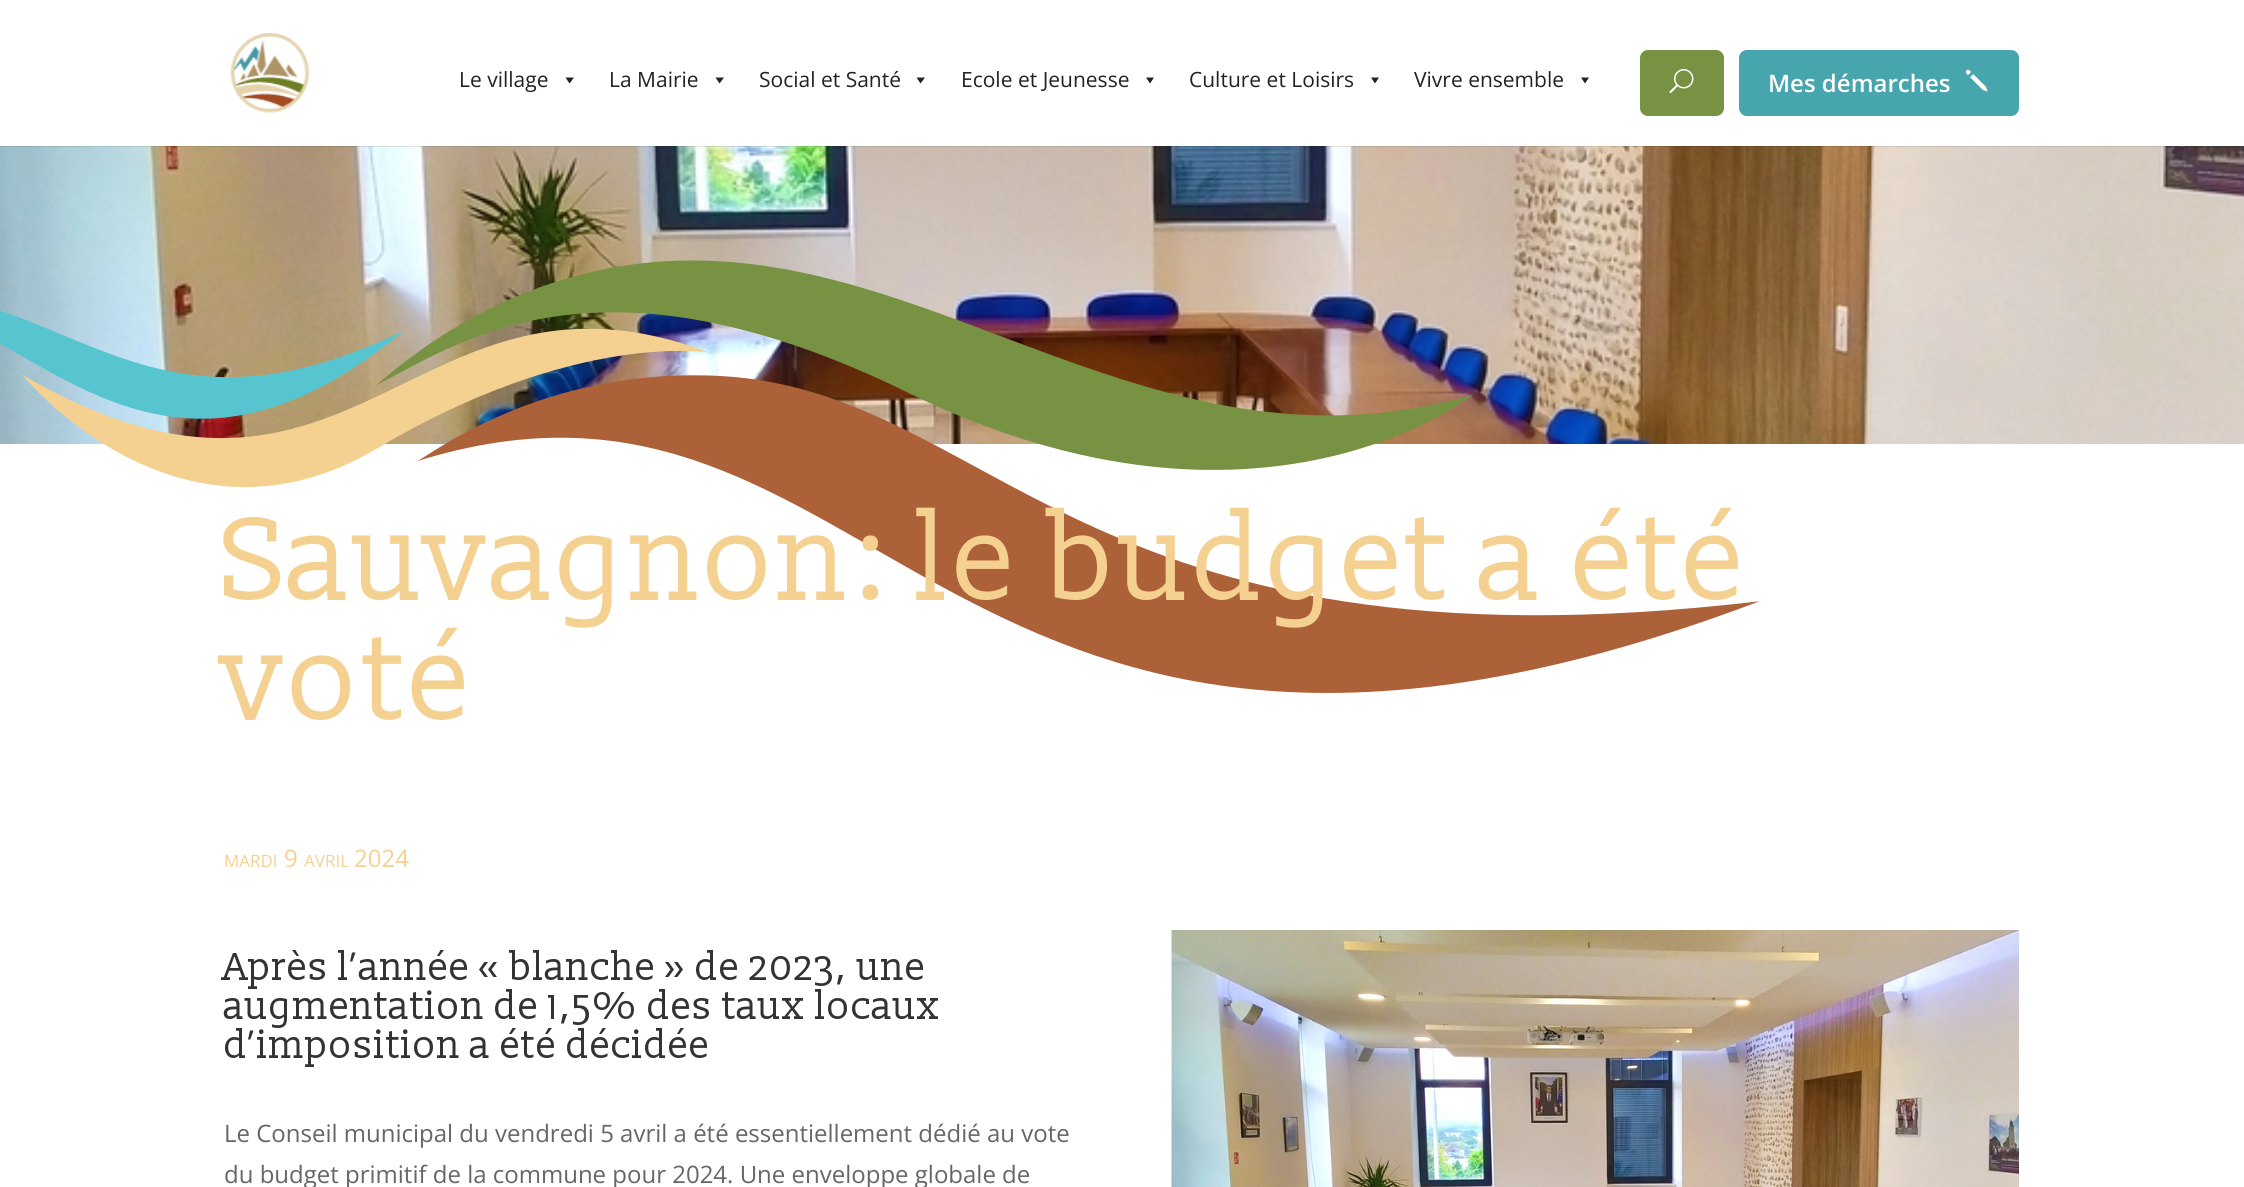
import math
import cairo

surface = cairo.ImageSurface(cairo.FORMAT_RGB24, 2244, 1187)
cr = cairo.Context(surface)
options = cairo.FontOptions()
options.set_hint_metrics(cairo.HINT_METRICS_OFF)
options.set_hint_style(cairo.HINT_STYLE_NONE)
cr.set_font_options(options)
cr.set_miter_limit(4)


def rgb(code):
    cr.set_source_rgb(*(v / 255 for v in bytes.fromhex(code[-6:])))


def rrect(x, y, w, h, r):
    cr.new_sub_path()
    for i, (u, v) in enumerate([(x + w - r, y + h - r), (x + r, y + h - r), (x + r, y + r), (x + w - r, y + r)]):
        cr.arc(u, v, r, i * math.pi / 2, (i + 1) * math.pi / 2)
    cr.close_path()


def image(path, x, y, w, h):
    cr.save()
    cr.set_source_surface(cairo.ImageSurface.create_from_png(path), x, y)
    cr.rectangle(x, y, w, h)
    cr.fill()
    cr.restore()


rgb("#ffffff")
cr.paint()
image("img/4.png", 0, 146, 2244, 298)
cr.set_source_rgba(0, 0, 0, 0.1)
cr.rectangle(0, 146, 2244, 1)
cr.fill()
image("img/1.png", 230, 33, 80, 80)
rgb("#222222")
cr.new_path()
cr.move_to(574, 77.5)
cr.line_to(569.5, 83.5)
cr.line_to(565.5, 77.5)
cr.close_path()
cr.fill()
cr.new_path()
cr.move_to(724, 77.5)
cr.line_to(719.5, 83.5)
cr.line_to(715.5, 77.5)
cr.close_path()
cr.fill()
cr.new_path()
cr.move_to(925, 77.5)
cr.line_to(920.5, 83.5)
cr.line_to(916.5, 77.5)
cr.close_path()
cr.fill()
cr.new_path()
cr.move_to(1154, 77.5)
cr.line_to(1150, 83.5)
cr.line_to(1146, 77.5)
cr.close_path()
cr.fill()
cr.new_path()
cr.move_to(1379, 77.5)
cr.line_to(1375, 83.5)
cr.line_to(1371, 77.5)
cr.close_path()
cr.fill()
cr.new_path()
cr.move_to(1589, 77.5)
cr.line_to(1585, 83.5)
cr.line_to(1581, 77.5)
cr.close_path()
cr.fill()
rgb("#779242")
rrect(1640, 50, 84, 66, 8)
cr.fill()
image("img/2.png", 1669, 69, 25, 25)
rgb("#47a5ae")
rrect(1739, 50, 280, 66, 8)
cr.fill()
image("img/3.png", 1965, 69, 23, 23)
image("img/5.png", 0, 260, 1760, 433)
image("img/6.png", 1171, 930, 848, 257)
cr.select_font_face("Open Sans")
cr.set_font_size(21)
rgb("#222222")
for x, y, s in [
    (459, 87, "Le village"),
    (609, 87, "La Mairie"),
    (759, 87, "Social et Santé"),
    (961, 87, "Ecole et Jeunesse"),
    (1189, 87, "Culture et Loisirs"),
    (1414, 87, "Vivre ensemble"),
]:
    cr.move_to(x, y)
    cr.show_text(s)
cr.select_font_face("Open Sans SemiBold")
cr.set_font_size(24)
rgb("#ffffff")
cr.move_to(1768, 92)
cr.show_text("Mes démarches")
cr.select_font_face("Slabo 13px")
cr.set_font_size(120)
rgb("#f5d191")
cr.move_to(224, 600)
cr.show_text("Sauvagnon: le budget a été")
cr.move_to(224, 720)
cr.show_text("voté")
cr.select_font_face("Open Sans")
cr.set_font_size(17)
cr.move_to(224, 867)
cr.show_text("MARDI")
cr.set_font_size(24)
cr.move_to(284, 867)
cr.show_text("9")
cr.set_font_size(17)
cr.move_to(304, 867)
cr.show_text("AVRIL")
cr.set_font_size(24)
cr.move_to(354, 867)
cr.show_text("2024")
cr.select_font_face("Slabo 13px")
cr.set_font_size(39)
rgb("#333333")
for x, y, s in [
    (224, 980, "Après l’année « blanche » de 2023, une"),
    (224, 1019, "augmentation de 1,5% des taux locaux"),
    (224, 1058, "d’imposition a été décidée"),
]:
    cr.move_to(x, y)
    cr.show_text(s)
cr.select_font_face("Open Sans")
cr.set_font_size(24)
rgb("#666666")
cr.move_to(224, 1142)
cr.show_text("Le Conseil municipal du vendredi 5 avril a été essentiellement dédié au vote")
cr.move_to(224, 1183)
cr.show_text("du budget primitif de la commune pour 2024. Une enveloppe globale de")
surface.write_to_png("page.png")
